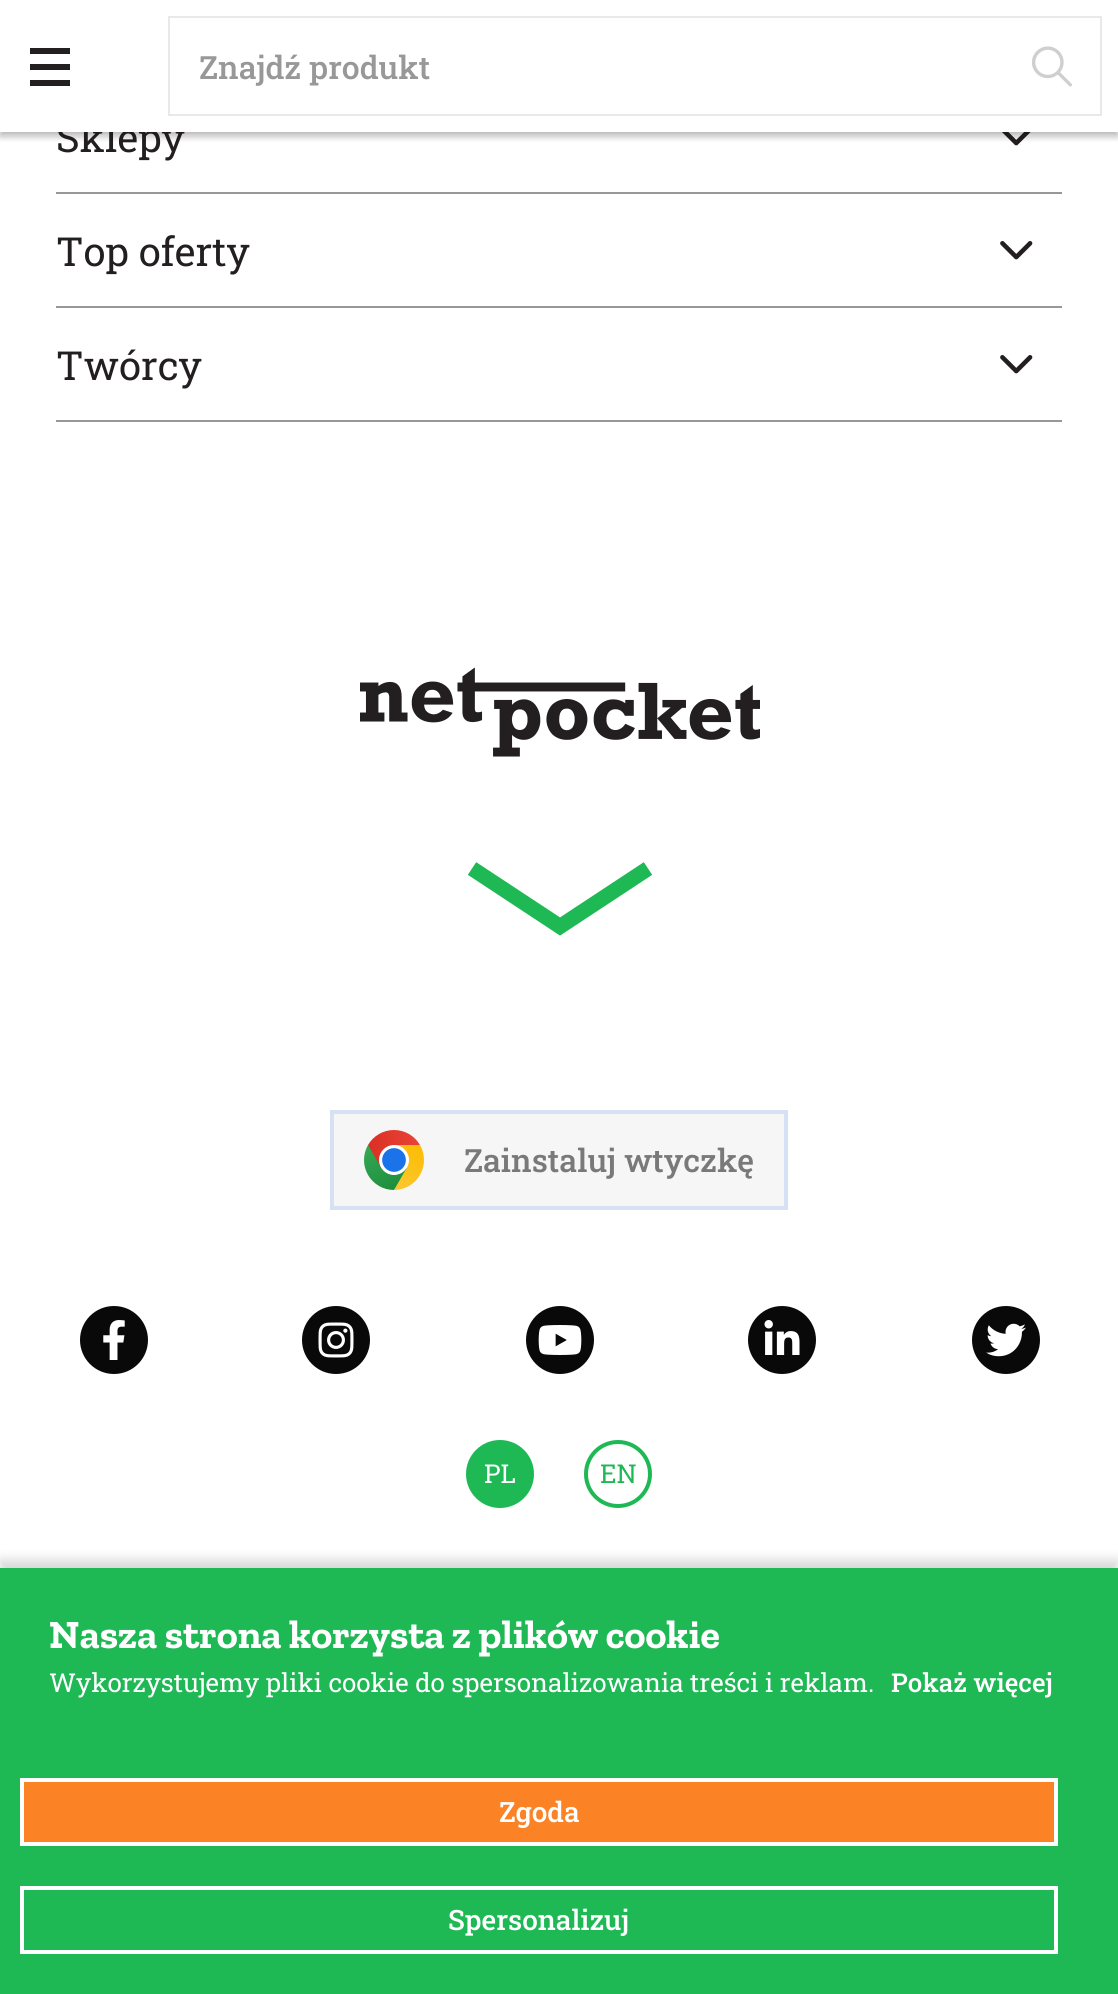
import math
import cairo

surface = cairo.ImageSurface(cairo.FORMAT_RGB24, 1118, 1994)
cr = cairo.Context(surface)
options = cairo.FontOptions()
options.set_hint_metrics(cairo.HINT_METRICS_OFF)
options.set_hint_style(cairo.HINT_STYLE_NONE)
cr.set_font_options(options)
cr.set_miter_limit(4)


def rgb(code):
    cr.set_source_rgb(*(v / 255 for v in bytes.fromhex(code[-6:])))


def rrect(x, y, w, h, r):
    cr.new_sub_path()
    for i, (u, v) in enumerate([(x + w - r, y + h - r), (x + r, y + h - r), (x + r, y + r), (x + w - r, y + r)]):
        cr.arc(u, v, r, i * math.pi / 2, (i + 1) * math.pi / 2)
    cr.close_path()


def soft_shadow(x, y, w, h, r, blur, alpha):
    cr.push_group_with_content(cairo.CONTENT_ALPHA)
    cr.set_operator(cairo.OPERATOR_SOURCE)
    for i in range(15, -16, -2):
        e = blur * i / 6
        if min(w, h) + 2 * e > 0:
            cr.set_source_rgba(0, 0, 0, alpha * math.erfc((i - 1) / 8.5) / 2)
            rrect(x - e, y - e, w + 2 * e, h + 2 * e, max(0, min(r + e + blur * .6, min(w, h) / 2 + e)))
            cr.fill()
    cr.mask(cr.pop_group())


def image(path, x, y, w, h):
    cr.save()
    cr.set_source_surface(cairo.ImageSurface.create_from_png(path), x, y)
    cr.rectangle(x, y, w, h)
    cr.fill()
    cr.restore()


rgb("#ffffff")
cr.paint()
image("img/2.png", 1002, 132, 29, 14)
rgb("#000000")
soft_shadow(0, 4, 1118, 132, 0, 4, 0.16)
rgb("#989898")
cr.rectangle(56, 192, 1006, 2)
cr.fill()
cr.rectangle(56, 306, 1006, 2)
cr.fill()
image("img/3.png", 1000, 241, 33, 19)
cr.rectangle(56, 420, 1006, 2)
cr.fill()
image("img/3.png", 1000, 355, 33, 19)
image("img/4.png", 360, 667, 400, 90)
cr.new_path()
cr.move_to(472, 868.5)
cr.line_to(560, 926.5)
cr.line_to(648, 868.5)
rgb("#1eb855")
cr.set_line_width(15.2)
cr.stroke()
rgb("#f6f6f6")
cr.rectangle(332, 1112, 454, 96)
cr.fill_preserve()
rgb("#d6e1f4")
cr.set_line_width(4)
cr.stroke()
image("img/5.png", 364, 1130, 60, 60)
rgb("#0a0909")
cr.arc(114, 1340, 34, 0, 2 * math.pi)
cr.fill()
image("img/6.png", 103, 1320, 22, 40)
cr.arc(336, 1340, 34, 0, 2 * math.pi)
cr.fill()
image("img/7.png", 318, 1322, 36, 36)
cr.arc(560, 1340, 34, 0, 2 * math.pi)
cr.fill()
image("img/8.png", 538, 1325, 44, 30)
cr.arc(782, 1340, 34, 0, 2 * math.pi)
cr.fill()
image("img/9.png", 764, 1320, 36, 35)
cr.arc(1006, 1340, 34, 0, 2 * math.pi)
cr.fill()
image("img/10.png", 986, 1323, 40, 34)
rgb("#1eb855")
cr.arc(500, 1474, 34, 0, 2 * math.pi)
cr.fill()
cr.arc(618, 1474, 32, 0, 2 * math.pi)
cr.stroke()
rgb("#000000")
soft_shadow(0, 1560, 1118, 426, 0, 6, 0.16)
rgb("#1eb855")
cr.rectangle(0, 1568, 1118, 426)
cr.fill()
rgb("#fb8225")
cr.rectangle(22, 1780, 1034, 64)
cr.fill_preserve()
rgb("#ffffff")
cr.stroke()
cr.rectangle(22, 1888, 1034, 64)
cr.stroke()
cr.select_font_face("Roboto Slab")
cr.set_font_size(40)
rgb("#231f20")
cr.move_to(56, 152)
cr.show_text("Sklepy")
rgb("#ffffff")
cr.rectangle(0, 0, 1118, 132)
cr.fill()
cr.save()
cr.rectangle(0, 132, 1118, 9)
cr.clip()
rgb("#000000")
soft_shadow(0, 4, 1118, 132, 0, 4, 0.16)
cr.restore()
cr.rectangle(169, 17, 932, 98)
rgb("#e9e9e9")
cr.set_line_width(2)
cr.stroke()
image("img/1.png", 1032, 46, 40, 41)
cr.select_font_face("Roboto Slab Medium")
cr.set_font_size(32)
rgb("#989898")
cr.move_to(199, 79)
cr.show_text("Znajdź produkt")
for x, y, w, h, color in [
    (30, 80, 40, 6, "#231f20"),
    (30, 64, 40, 6, "#231f20"),
    (30, 48, 40, 6, "#231f20"),
]:
    rgb(color)
    cr.rectangle(x, y, w, h)
    cr.fill()
cr.select_font_face("Roboto Slab")
cr.set_font_size(40)
cr.move_to(56, 266)
cr.show_text("Top oferty")
cr.move_to(56, 380)
cr.show_text("Twórcy")
cr.select_font_face("Roboto Slab Medium")
cr.set_font_size(32)
rgb("#7a7979")
cr.move_to(464, 1172)
cr.show_text("Zainstaluj wtyczkę")
cr.select_font_face("Roboto Slab")
cr.set_font_size(26)
rgb("#ffffff")
cr.move_to(484, 1483)
cr.show_text("PL")
rgb("#1eb855")
cr.move_to(600, 1483)
cr.show_text("EN")
cr.select_font_face("Zilla Slab", cairo.FONT_SLANT_NORMAL, cairo.FONT_WEIGHT_BOLD)
cr.set_font_size(40)
rgb("#ffffff")
cr.move_to(49, 1648)
cr.show_text("Nasza strona korzysta z plików cookie")
cr.select_font_face("Roboto Slab")
cr.set_font_size(26)
cr.move_to(49, 1692)
cr.show_text("Wykorzystujemy pliki cookie do spersonalizowania treści i reklam.")
cr.select_font_face("Roboto Slab Medium")
cr.move_to(891, 1692)
cr.show_text("Pokaż więcej")
cr.set_font_size(28)
cr.move_to(499, 1822)
cr.show_text("Zgoda")
cr.move_to(448, 1930)
cr.show_text("Spersonalizuj")
surface.write_to_png("page.png")
